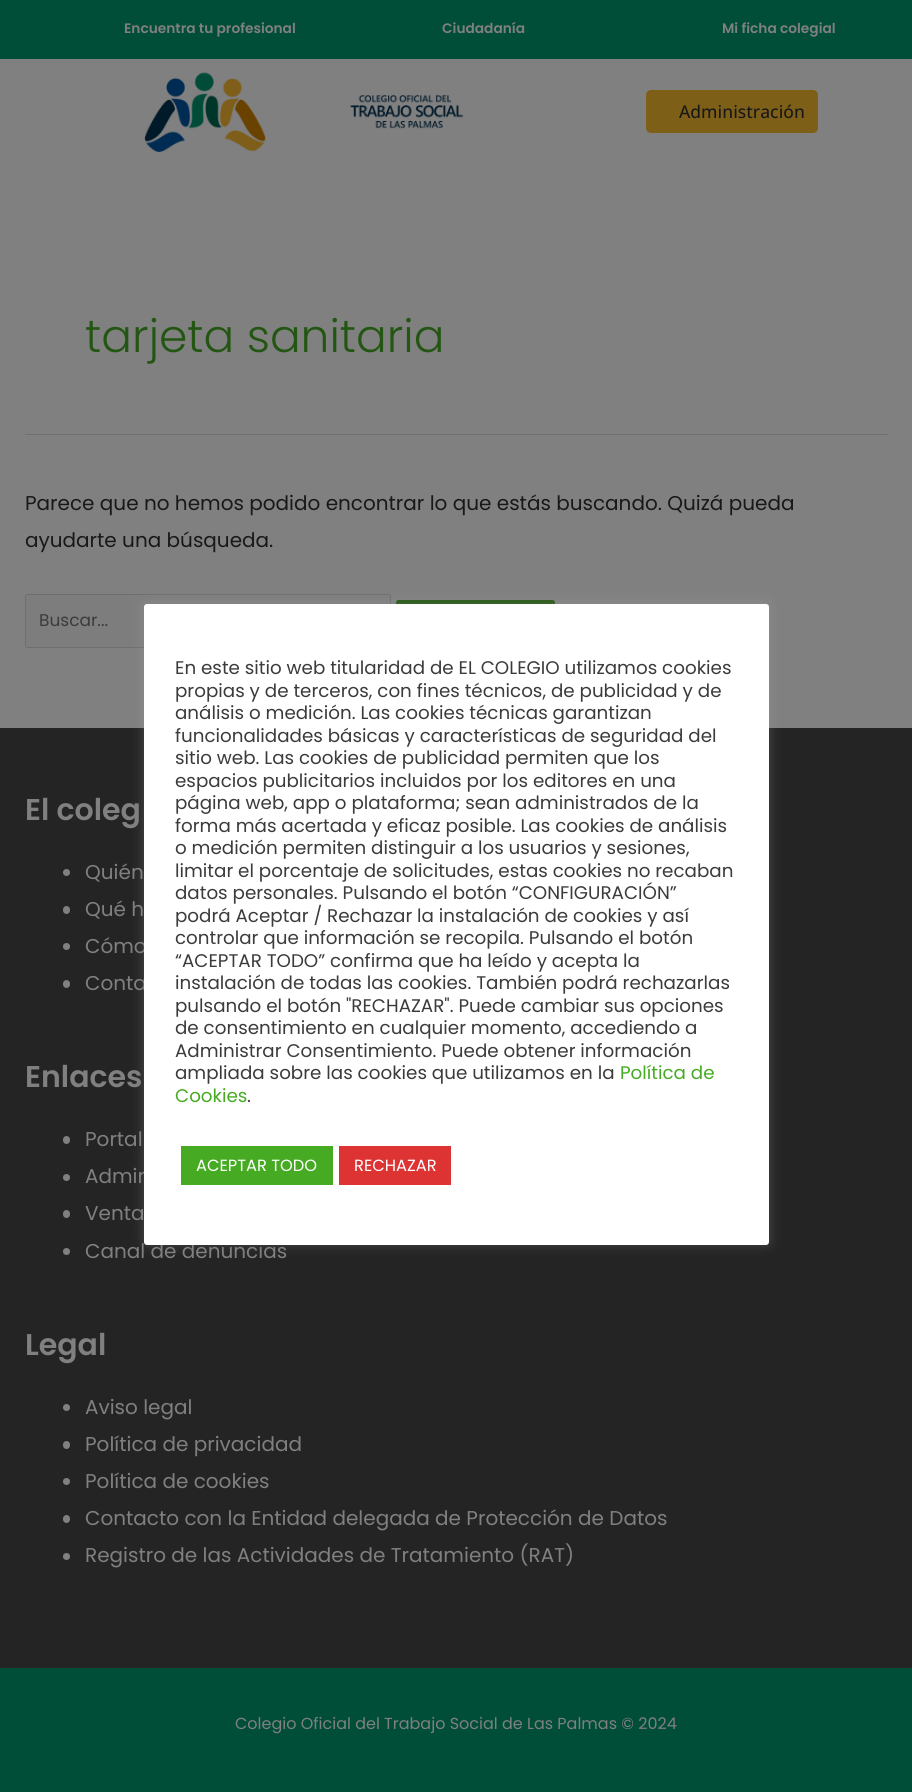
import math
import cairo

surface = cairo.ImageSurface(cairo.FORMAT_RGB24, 912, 1792)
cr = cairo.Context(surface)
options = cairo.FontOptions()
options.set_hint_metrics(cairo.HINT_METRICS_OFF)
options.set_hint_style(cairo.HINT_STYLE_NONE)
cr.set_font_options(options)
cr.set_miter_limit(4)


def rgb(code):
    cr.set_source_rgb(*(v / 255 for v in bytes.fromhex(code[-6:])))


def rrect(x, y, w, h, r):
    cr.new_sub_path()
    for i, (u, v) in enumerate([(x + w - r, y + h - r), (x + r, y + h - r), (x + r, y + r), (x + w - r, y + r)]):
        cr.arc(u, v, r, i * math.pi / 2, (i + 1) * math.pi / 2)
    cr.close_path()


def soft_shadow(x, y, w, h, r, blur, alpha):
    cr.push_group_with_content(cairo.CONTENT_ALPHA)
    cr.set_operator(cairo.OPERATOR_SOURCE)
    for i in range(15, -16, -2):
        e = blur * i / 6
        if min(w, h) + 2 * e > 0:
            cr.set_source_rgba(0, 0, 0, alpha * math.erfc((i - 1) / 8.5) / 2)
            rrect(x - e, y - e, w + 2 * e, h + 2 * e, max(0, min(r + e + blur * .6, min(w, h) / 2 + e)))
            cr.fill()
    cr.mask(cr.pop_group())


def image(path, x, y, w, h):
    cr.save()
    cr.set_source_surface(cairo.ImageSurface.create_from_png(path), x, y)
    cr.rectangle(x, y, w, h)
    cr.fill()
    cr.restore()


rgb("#808080")
cr.paint()
rgb("#004d38")
cr.rectangle(0, 0, 912, 59)
cr.fill()
image("img/1.png", 144, 72, 122, 80)
image("img/2.png", 350, 95, 114, 34)
rgb("#7e5f18")
rrect(646, 90, 172, 43, 5)
cr.fill()
rgb("#6f6f6f")
cr.rectangle(25, 434, 863, 1)
cr.fill()
rgb("#7d7d7d")
rrect(25.5, 594.5, 365, 53, 2)
cr.fill_preserve()
rgb("#6f6f6f")
cr.set_line_width(1)
cr.stroke()
rgb("#235612")
rrect(396, 600, 159, 41, 2.5)
cr.fill()
rgb("#242424")
cr.rectangle(0, 728, 912, 940)
cr.fill()
rgb("#808080")
cr.arc(66.5, 872.5, 3.5, 0, 2 * math.pi)
cr.fill()
rrect(63, 906, 7, 8, 3.5)
cr.fill()
cr.arc(66.5, 946.5, 3.5, 0, 2 * math.pi)
cr.fill()
rrect(63, 980, 7, 8, 3.5)
cr.fill()
rrect(63, 1136, 7, 8, 3.5)
cr.fill()
cr.arc(66.5, 1177.5, 3.5, 0, 2 * math.pi)
cr.fill()
rrect(63, 1210, 7, 8, 3.5)
cr.fill()
cr.arc(66.5, 1251.5, 3.5, 0, 2 * math.pi)
cr.fill()
cr.arc(66.5, 1407.5, 3.5, 0, 2 * math.pi)
cr.fill()
rrect(63, 1441, 7, 8, 3.5)
cr.fill()
cr.arc(66.5, 1481.5, 3.5, 0, 2 * math.pi)
cr.fill()
rrect(63, 1515, 7, 8, 3.5)
cr.fill()
cr.arc(66.5, 1556.5, 3.5, 0, 2 * math.pi)
cr.fill()
rgb("#004d38")
cr.rectangle(0, 1668, 912, 124)
cr.fill()
rgb("#acabab")
soft_shadow(144, 603, 625, 641, 3, 6, 0.3)
cr.select_font_face("Poppins SemiBold")
cr.set_font_size(13.75)
rgb("#808080")
for x, y, s in [
    (124, 33, "Encuentra tu profesional"),
    (442, 33, "Ciudadanía"),
    (722, 33, "Mi ficha colegial"),
]:
    cr.move_to(x, y)
    cr.show_text(s)
cr.select_font_face("Open Sans Medium")
cr.set_font_size(17.5)
rgb("#181818")
cr.move_to(679, 118)
cr.show_text("Administración")
cr.select_font_face("Poppins Light")
cr.set_font_size(45.5)
rgb("#235612")
cr.move_to(85, 352)
cr.show_text("tarjeta sanitaria")
cr.select_font_face("Poppins")
cr.set_font_size(20)
rgb("#181818")
cr.move_to(25, 510)
cr.show_text("Parece que no hemos podido encontrar lo que estás buscando. Quizá pueda")
cr.move_to(25, 547)
cr.show_text("ayudarte una búsqueda.")
cr.set_font_size(17)
rgb("#3b3b3b")
cr.move_to(39, 626)
cr.show_text("Buscar...")
cr.select_font_face("Poppins SemiBold")
cr.set_font_size(30)
rgb("#808080")
cr.move_to(25, 820)
cr.show_text("El coleg")
cr.select_font_face("Poppins")
cr.set_font_size(20)
for x, y, s in [
    (85, 879, "Quién"),
    (85, 916, "Qué h"),
    (85, 953, "Cómo"),
    (85, 990, "Conta"),
]:
    cr.move_to(x, y)
    cr.show_text(s)
cr.select_font_face("Poppins SemiBold")
cr.set_font_size(30)
cr.move_to(25, 1087)
cr.show_text("Enlaces")
cr.select_font_face("Poppins")
cr.set_font_size(20)
for x, y, s in [
    (85, 1146, "Portal"),
    (85, 1183, "Admin"),
    (85, 1220, "Venta"),
    (85, 1258, "Canal de denuncias"),
]:
    cr.move_to(x, y)
    cr.show_text(s)
cr.select_font_face("Poppins SemiBold")
cr.set_font_size(30)
cr.move_to(25, 1355)
cr.show_text("Legal")
cr.select_font_face("Poppins")
cr.set_font_size(20)
for x, y, s in [
    (85, 1414, "Aviso legal"),
    (85, 1451, "Política de privacidad"),
    (85, 1488, "Política de cookies"),
    (85, 1525, "Contacto con la Entidad delegada de Protección de Datos"),
    (85, 1562, "Registro de las Actividades de Tratamiento (RAT)"),
]:
    cr.move_to(x, y)
    cr.show_text(s)
cr.set_font_size(16)
cr.move_to(235, 1729)
cr.show_text("Colegio Oficial del Trabajo Social de Las Palmas © 2024")
rgb("#ffffff")
rrect(144, 604, 625, 641, 3)
cr.fill()
cr.set_font_size(18.3)
rgb("#3b3b3b")
for x, y, s in [
    (175, 674, "En este sitio web titularidad de EL COLEGIO utilizamos cookies"),
    (175, 697, "propias y de terceros, con fines técnicos, de publicidad y de"),
    (175, 719, "análisis o medición. Las cookies técnicas garantizan"),
    (175, 742, "funcionalidades básicas y características de seguridad del"),
    (175, 764, "sitio web. Las cookies de publicidad permiten que los"),
    (175, 787, "espacios publicitarios incluidos por los editores en una"),
    (175, 809, "página web, app o plataforma; sean administrados de la"),
    (175, 832, "forma más acertada y eficaz posible. Las cookies de análisis"),
    (175, 854, "o medición permiten distinguir a los usuarios y sesiones,"),
    (175, 877, "limitar el porcentaje de solicitudes, estas cookies no recaban"),
    (175, 899, "datos personales. Pulsando el botón “CONFIGURACIÓN”"),
    (175, 922, "podrá Aceptar / Rechazar la instalación de cookies y así"),
    (175, 944, "controlar que información se recopila. Pulsando el botón"),
    (175, 967, "“ACEPTAR TODO” confirma que ha leído y acepta la"),
    (175, 989, "instalación de todas las cookies. También podrá rechazarlas"),
    (175, 1012, "pulsando el botón \"RECHAZAR\". Puede cambiar sus opciones"),
    (175, 1034, "de consentimiento en cualquier momento, accediendo a"),
    (175, 1057, "Administrar Consentimiento. Puede obtener información"),
    (175, 1079, "ampliada sobre las cookies que utilizamos en la"),
]:
    cr.move_to(x, y)
    cr.show_text(s)
rgb("#46ab23")
cr.move_to(620, 1079)
cr.show_text("Política de")
cr.move_to(175, 1102)
cr.show_text("Cookies")
rgb("#3b3b3b")
cr.move_to(247, 1102)
cr.show_text(".")
rgb("#46ab23")
cr.rectangle(181, 1146, 152, 39)
cr.fill()
cr.set_font_size(16.25)
rgb("#ffffff")
cr.move_to(196, 1171)
cr.show_text("ACEPTAR TODO")
rgb("#dd3333")
cr.rectangle(339, 1146, 112, 39)
cr.fill()
rgb("#ffffff")
cr.move_to(354, 1171)
cr.show_text("RECHAZAR")
surface.write_to_png("page.png")
